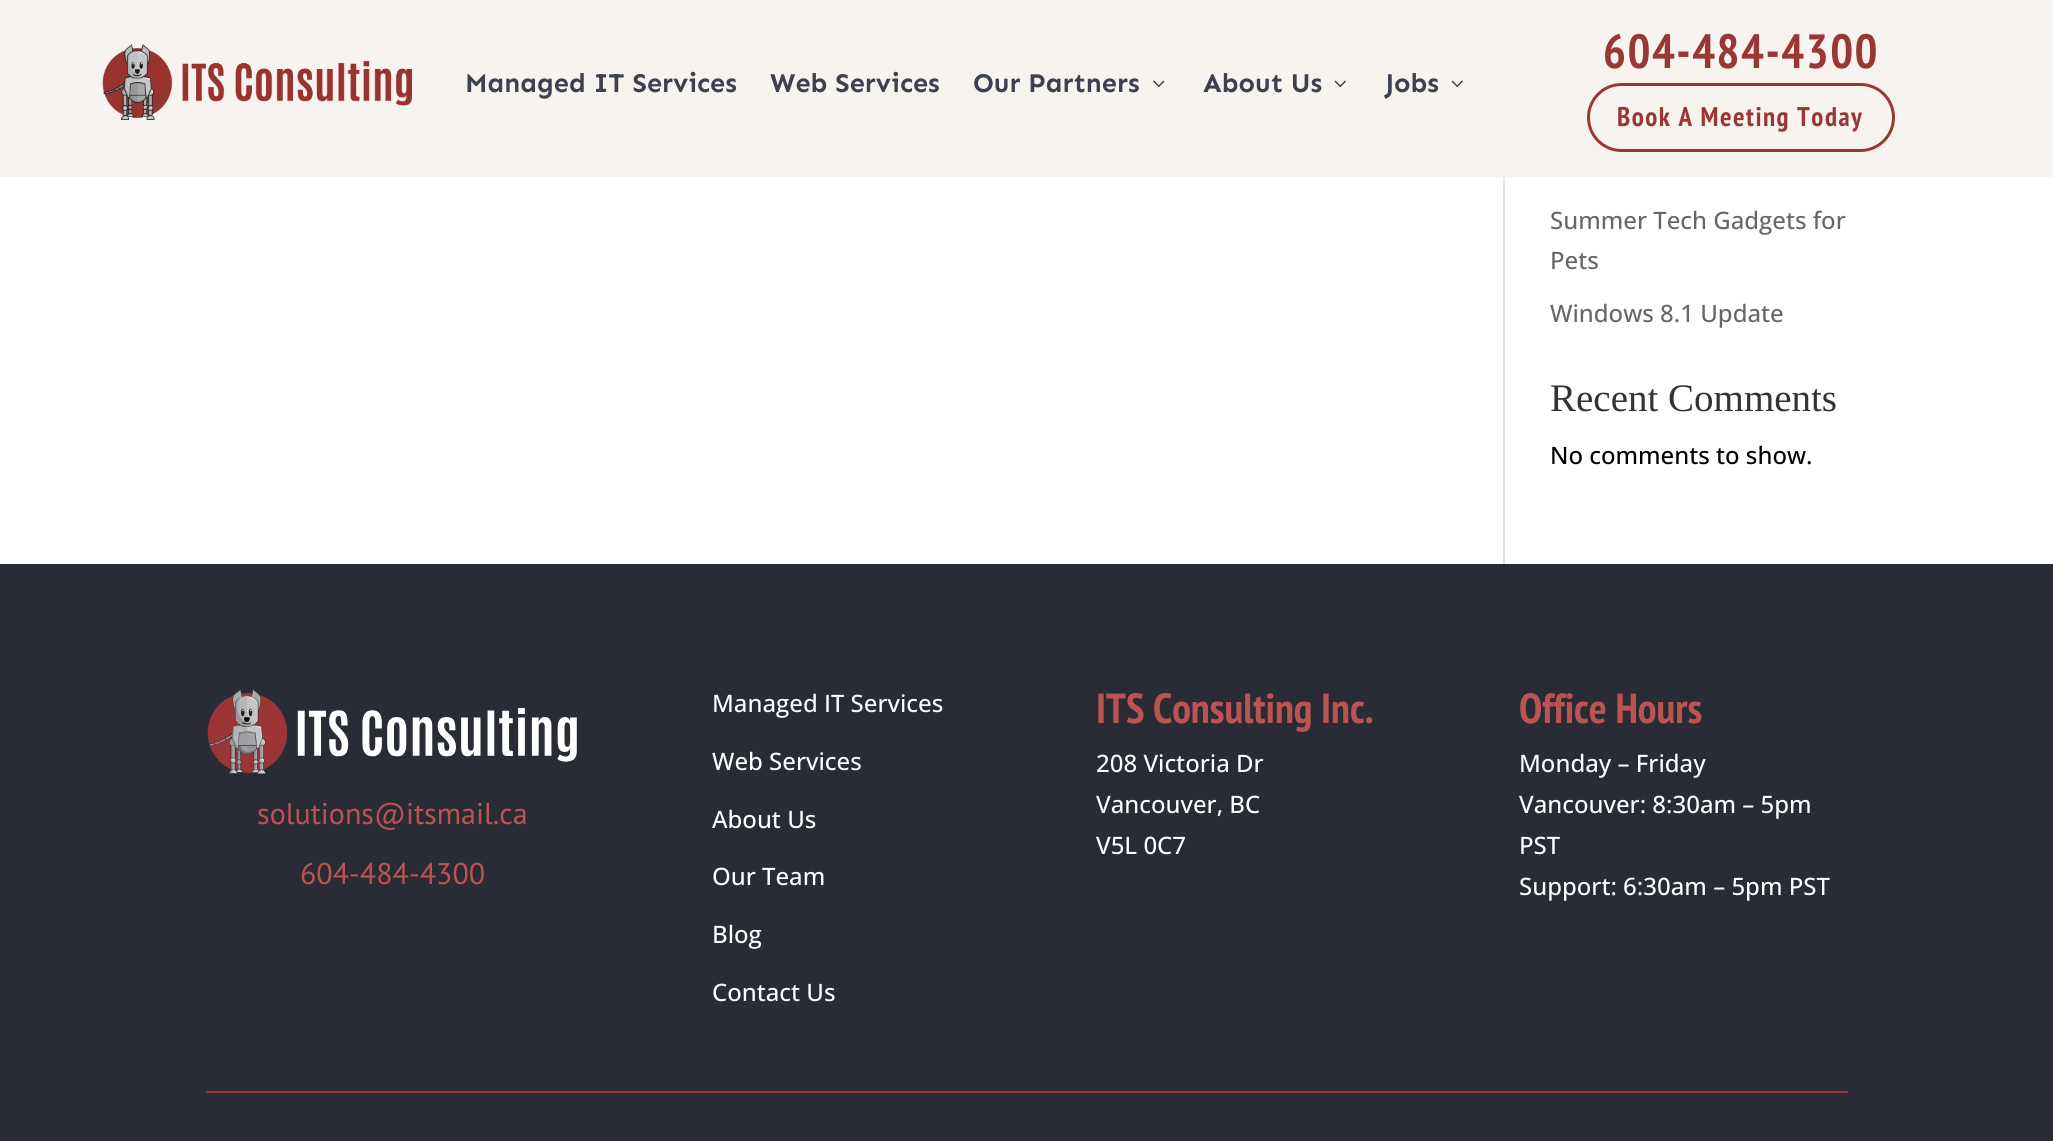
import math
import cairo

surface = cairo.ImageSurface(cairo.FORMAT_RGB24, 2053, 1141)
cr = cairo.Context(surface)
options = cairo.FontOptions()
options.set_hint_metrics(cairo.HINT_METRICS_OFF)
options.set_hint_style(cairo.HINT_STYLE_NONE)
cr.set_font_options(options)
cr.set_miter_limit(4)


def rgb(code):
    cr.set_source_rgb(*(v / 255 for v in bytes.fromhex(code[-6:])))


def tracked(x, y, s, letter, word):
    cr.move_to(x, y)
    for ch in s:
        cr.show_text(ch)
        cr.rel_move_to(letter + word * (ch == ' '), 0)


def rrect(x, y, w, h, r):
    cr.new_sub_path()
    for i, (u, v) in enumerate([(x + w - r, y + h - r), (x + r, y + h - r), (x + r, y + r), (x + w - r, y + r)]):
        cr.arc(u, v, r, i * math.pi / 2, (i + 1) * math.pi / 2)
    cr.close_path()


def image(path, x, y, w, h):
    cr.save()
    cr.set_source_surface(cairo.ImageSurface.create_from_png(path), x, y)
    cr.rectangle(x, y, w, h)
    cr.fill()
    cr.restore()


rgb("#ffffff")
cr.paint()
rgb("#f7f4f0")
cr.rectangle(0, 0, 2053, 177)
cr.fill()
image("img/1.png", 102, 44, 310, 76)
image("img/2.png", 1153, 80, 12, 7)
image("img/3.png", 1334, 80, 12, 7)
image("img/3.png", 1451, 80, 12, 7)
rrect(1588.5, 84.5, 305, 66, 33)
rgb("#9a3735")
cr.set_line_width(3)
cr.stroke()
rgb("#e2e2e2")
cr.rectangle(1503, 177, 2, 387)
cr.fill()
rgb("#292c35")
cr.rectangle(0, 564, 2053, 577)
cr.fill()
image("img/4.png", 207, 689, 370, 85)
rgb("#9c3536")
cr.rectangle(206, 1091, 1642, 2)
cr.fill()
cr.select_font_face("Sen", cairo.FONT_SLANT_NORMAL, cairo.FONT_WEIGHT_BOLD)
cr.set_font_size(27)
rgb("#3c404f")
for x, y, s in [
    (465, 92, "Managed IT Services"),
    (770, 92, "Web Services"),
    (973, 92, "Our Partners"),
    (1203, 92, "About Us"),
    (1385, 92, "Jobs"),
]:
    cr.move_to(x, y)
    cr.show_text(s)
cr.select_font_face("PT Sans Narrow", cairo.FONT_SLANT_NORMAL, cairo.FONT_WEIGHT_BOLD)
cr.set_font_size(48)
rgb("#9a3735")
tracked(1603, 68, "604-484-4300", 1.5, 0)
cr.set_font_size(27)
tracked(1617, 126, "Book A Meeting Today", 1.5, 0)
cr.select_font_face("Open Sans Medium")
cr.set_font_size(24)
rgb("#666666")
for x, y, s in [
    (1550, 229, "Summer Tech Gadgets for"),
    (1550, 269, "Pets"),
    (1550, 322, "Windows 8.1 Update"),
]:
    cr.move_to(x, y)
    cr.show_text(s)
cr.select_font_face("Liberation Serif")
cr.set_font_size(39)
rgb("#333333")
cr.move_to(1550, 411)
cr.show_text("Recent Comments")
cr.select_font_face("Open Sans Medium")
cr.set_font_size(24)
rgb("#000000")
cr.move_to(1550, 464)
cr.show_text("No comments to show.")
cr.select_font_face("PT Sans")
cr.set_font_size(30)
rgb("#bc5353")
cr.move_to(257, 824)
cr.show_text("solutions@itsmail.ca")
cr.move_to(300, 884)
cr.show_text("604-484-4300")
cr.select_font_face("Open Sans Medium")
cr.set_font_size(24)
rgb("#ffffff")
for x, y, s in [
    (712, 712, "Managed IT Services"),
    (712, 770, "Web Services"),
    (712, 828, "About Us"),
    (712, 885, "Our Team"),
    (712, 943, "Blog"),
    (712, 1001, "Contact Us"),
]:
    cr.move_to(x, y)
    cr.show_text(s)
cr.select_font_face("PT Sans Narrow", cairo.FONT_SLANT_NORMAL, cairo.FONT_WEIGHT_BOLD)
cr.set_font_size(42)
rgb("#bc5353")
cr.move_to(1096, 723)
cr.show_text("ITS Consulting Inc.")
cr.select_font_face("Open Sans Medium")
cr.set_font_size(24)
rgb("#ffffff")
for x, y, s in [
    (1096, 772, "208 Victoria Dr"),
    (1096, 813, "Vancouver, BC"),
    (1096, 854, "V5L 0C7"),
]:
    cr.move_to(x, y)
    cr.show_text(s)
cr.select_font_face("PT Sans Narrow", cairo.FONT_SLANT_NORMAL, cairo.FONT_WEIGHT_BOLD)
cr.set_font_size(42)
rgb("#bc5353")
cr.move_to(1519, 723)
cr.show_text("Office Hours")
cr.select_font_face("Open Sans Medium")
cr.set_font_size(24)
rgb("#ffffff")
for x, y, s in [
    (1519, 772, "Monday – Friday"),
    (1519, 813, "Vancouver: 8:30am – 5pm"),
    (1519, 854, "PST"),
    (1519, 895, "Support: 6:30am – 5pm PST"),
]:
    cr.move_to(x, y)
    cr.show_text(s)
surface.write_to_png("page.png")
